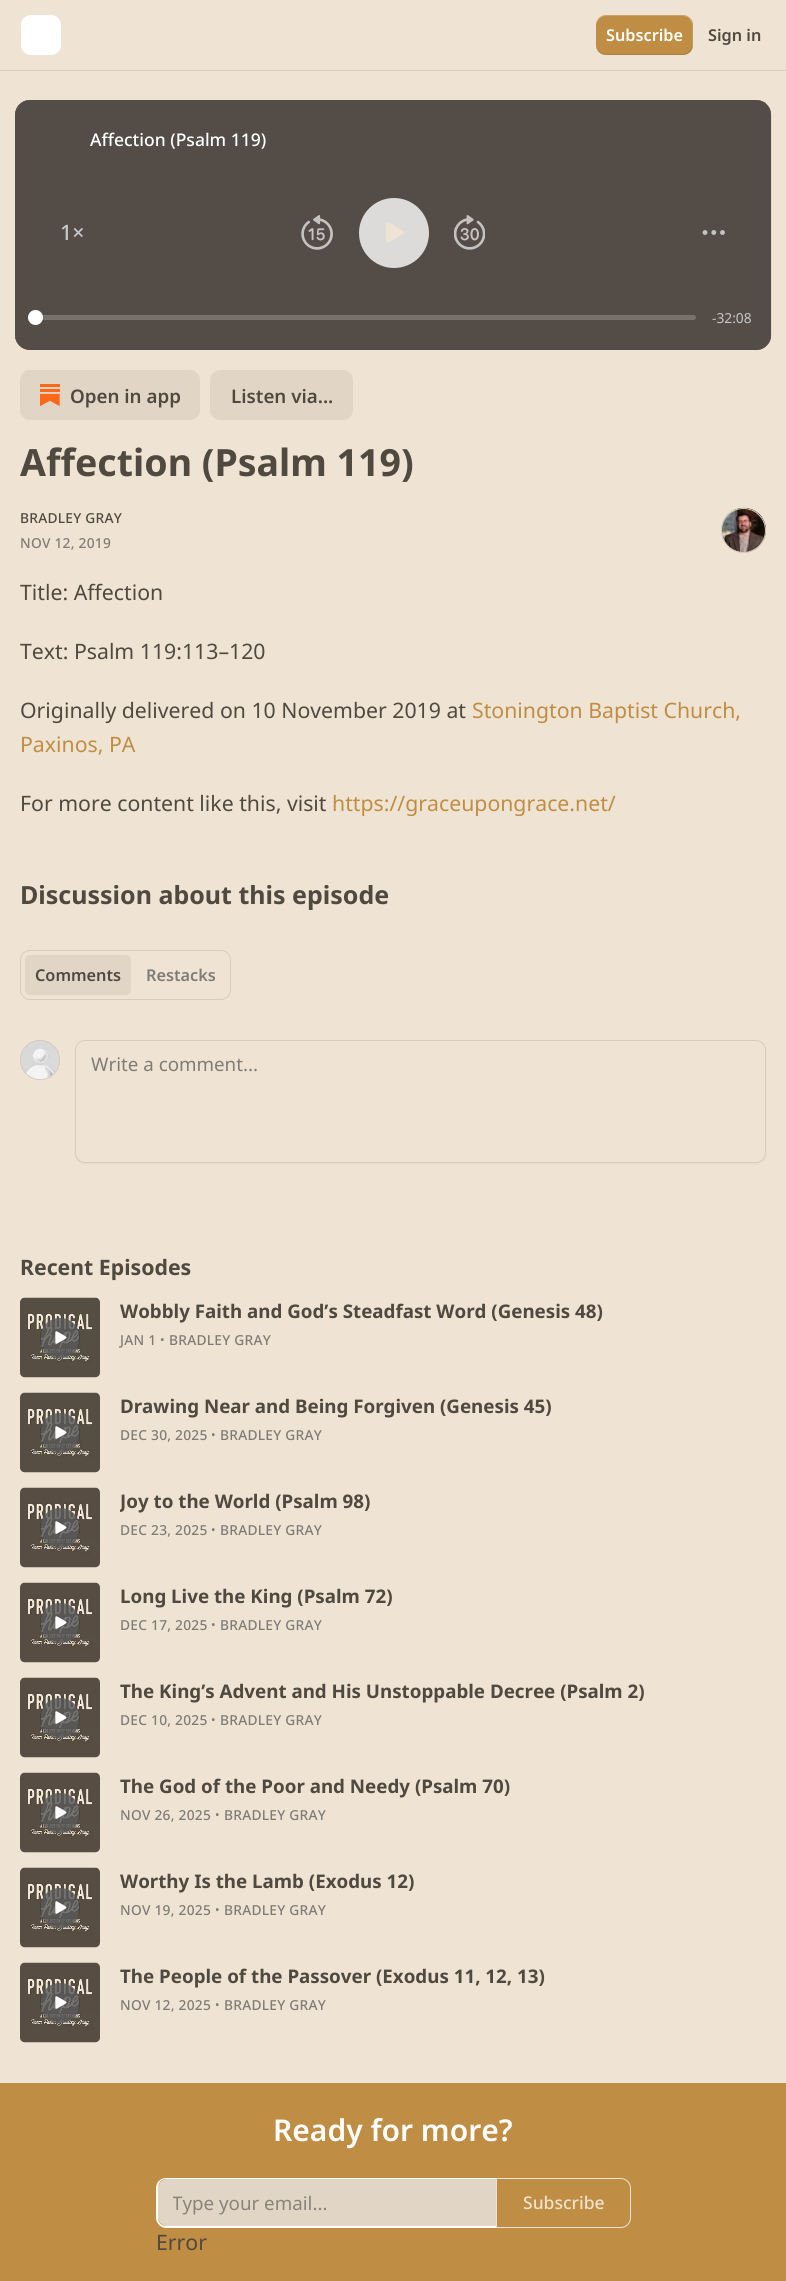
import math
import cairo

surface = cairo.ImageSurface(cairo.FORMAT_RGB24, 786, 2281)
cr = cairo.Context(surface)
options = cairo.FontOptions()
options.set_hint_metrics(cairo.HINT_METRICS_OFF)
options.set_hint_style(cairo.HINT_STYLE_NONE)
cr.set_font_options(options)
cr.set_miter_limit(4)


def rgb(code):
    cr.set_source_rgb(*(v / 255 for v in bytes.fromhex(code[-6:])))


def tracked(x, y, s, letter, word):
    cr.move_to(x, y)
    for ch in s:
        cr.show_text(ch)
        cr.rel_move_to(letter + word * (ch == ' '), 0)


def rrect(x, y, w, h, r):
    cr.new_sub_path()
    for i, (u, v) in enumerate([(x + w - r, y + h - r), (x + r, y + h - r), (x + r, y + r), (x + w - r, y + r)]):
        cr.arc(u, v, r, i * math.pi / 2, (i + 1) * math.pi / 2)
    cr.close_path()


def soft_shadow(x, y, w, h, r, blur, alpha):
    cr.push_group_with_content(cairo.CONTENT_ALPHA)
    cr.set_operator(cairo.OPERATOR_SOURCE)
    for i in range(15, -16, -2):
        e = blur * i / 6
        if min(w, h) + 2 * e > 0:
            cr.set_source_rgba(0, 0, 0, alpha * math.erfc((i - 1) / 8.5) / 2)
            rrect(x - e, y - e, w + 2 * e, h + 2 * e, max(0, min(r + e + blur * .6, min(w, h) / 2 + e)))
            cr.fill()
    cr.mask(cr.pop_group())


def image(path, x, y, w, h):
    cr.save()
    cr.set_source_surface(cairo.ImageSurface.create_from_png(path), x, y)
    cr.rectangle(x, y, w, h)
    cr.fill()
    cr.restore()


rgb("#efe4d3")
cr.paint()
rgb("#d7cdbe")
cr.rectangle(0, 70, 786, 1)
cr.fill()
rgb("#ffffff")
rrect(21, 15, 40, 40, 10)
cr.fill()
rgb("#bf8d43")
rrect(596, 15, 97, 40, 10)
cr.fill()
cr.set_source_rgba(0, 0, 0, 0.1)
cr.new_path()
cr.move_to(596, 44)
cr.line_to(596, 45)
cr.curve_to(596, 51, 600, 55, 606, 55)
cr.line_to(683, 55)
cr.curve_to(689, 55, 693, 51, 693, 45)
cr.line_to(693, 25)
cr.curve_to(693, 23, 692, 20, 691, 19)
cr.curve_to(692, 20, 692, 22, 692, 24)
cr.line_to(692, 44)
cr.curve_to(692, 49, 688, 54, 682, 54)
cr.line_to(606, 54)
cr.curve_to(601, 54, 596, 49, 596, 44)
cr.close_path()
cr.fill()
cr.set_source_rgba(1, 1, 1, 0.2)
cr.new_path()
cr.move_to(606, 16)
cr.line_to(682, 16)
cr.curve_to(688, 16, 692, 21, 692, 26)
cr.line_to(692, 46)
cr.curve_to(692, 48, 692, 50, 691, 51)
cr.curve_to(692, 50, 693, 47, 693, 45)
cr.line_to(693, 25)
cr.curve_to(693, 19, 689, 15, 683, 15)
cr.line_to(606, 15)
cr.curve_to(600, 15, 596, 19, 596, 25)
cr.line_to(596, 26)
cr.curve_to(596, 21, 601, 16, 606, 16)
cr.close_path()
cr.fill()
image("img/1.png", 15, 100, 757, 250)
rgb("#9e968b")
rrect(15, 100, 756, 250, 15)
cr.fill()
cr.set_source_rgba(0.231, 0.208, 0.188, 0.75)
rrect(15, 100, 756, 250, 15)
cr.fill()
image("img/2.png", 301, 215, 32, 35)
rgb("#dddbda")
cr.arc(394, 233, 35, 0, 2 * math.pi)
cr.fill()
image("img/3.png", 386, 222, 18, 21)
image("img/4.png", 454, 215, 31, 35)
cr.arc(713.8, 232.5, 1.2, 0, 2 * math.pi)
rgb("#c5c3c0")
cr.set_line_width(2.5)
cr.stroke()
cr.arc(722.5, 232.5, 1.2, 0, 2 * math.pi)
cr.stroke()
cr.arc(705, 232.5, 1.2, 0, 2 * math.pi)
cr.stroke()
rgb("#76716b")
rrect(35, 315, 661, 5, 2.5)
cr.fill()
rgb("#ffffff")
cr.arc(35.5, 317.5, 7.5, 0, 2 * math.pi)
cr.fill()
rgb("#e1d6c6")
rrect(20, 370, 180, 50, 10)
cr.fill()
image("img/5.png", 40, 384, 20, 22)
rrect(210, 370, 143, 50, 10)
cr.fill()
cr.arc(743.5, 530.5, 22, 0, 2 * math.pi)
rgb("#d7cdbe")
cr.set_line_width(1)
cr.stroke()
image("img/6.png", 721, 507, 45, 46)
cr.arc(743.5, 530.5, 22, 0, 2 * math.pi)
cr.stroke()
rrect(20.5, 950.5, 210, 49, 9.5)
cr.stroke()
rgb("#e1d6c6")
rrect(25, 955, 106, 40, 5)
cr.fill()
cr.arc(40, 1060, 19.5, 0, 2 * math.pi)
rgb("#d7cdbe")
cr.stroke()
image("img/7.png", 20, 1040, 40, 40)
cr.arc(40, 1060, 19.5, 0, 2 * math.pi)
cr.stroke()
rgb("#000000")
soft_shadow(75, 1041, 691, 123, 10, 1, 0.05)
rgb("#efe4d3")
rrect(75.5, 1040.5, 690, 122, 9.5)
cr.fill_preserve()
rgb("#d7cdbe")
cr.stroke()
image("img/8.png", 20, 1297, 80, 81)
cr.set_source_rgba(0.157, 0.157, 0.157, 0.75)
cr.arc(60, 1338, 20, 0, 2 * math.pi)
cr.fill()
cr.set_source_rgba(0, 0, 0, 0.1)
cr.new_path()
cr.move_to(60, 1318)
cr.curve_to(34, 1318, 34, 1358, 60, 1358)
cr.curve_to(86, 1358, 86, 1318, 60, 1318)
cr.close_path()
cr.fill()
cr.set_source_rgba(1, 1, 1, 0.2)
cr.new_path()
cr.move_to(60, 1318)
cr.curve_to(34, 1318, 34, 1358, 60, 1358)
cr.curve_to(86, 1358, 86, 1318, 60, 1318)
cr.close_path()
cr.fill()
image("img/9.png", 55, 1331, 12, 13)
image("img/10.png", 20, 1392, 80, 81)
cr.set_source_rgba(0.157, 0.157, 0.157, 0.75)
cr.arc(60, 1433, 20, 0, 2 * math.pi)
cr.fill()
cr.set_source_rgba(0, 0, 0, 0.1)
cr.new_path()
cr.move_to(60, 1413)
cr.curve_to(34, 1413, 34, 1453, 60, 1453)
cr.curve_to(86, 1453, 86, 1413, 60, 1413)
cr.close_path()
cr.fill()
cr.set_source_rgba(1, 1, 1, 0.2)
cr.new_path()
cr.move_to(60, 1413)
cr.curve_to(34, 1413, 34, 1453, 60, 1453)
cr.curve_to(86, 1453, 86, 1413, 60, 1413)
cr.close_path()
cr.fill()
image("img/11.png", 55, 1426, 12, 13)
image("img/12.png", 20, 1487, 80, 81)
cr.set_source_rgba(0.157, 0.157, 0.157, 0.75)
cr.arc(60, 1528, 20, 0, 2 * math.pi)
cr.fill()
cr.set_source_rgba(0, 0, 0, 0.1)
cr.new_path()
cr.move_to(60, 1508)
cr.curve_to(34, 1508, 34, 1548, 60, 1548)
cr.curve_to(86, 1548, 86, 1508, 60, 1508)
cr.close_path()
cr.fill()
cr.set_source_rgba(1, 1, 1, 0.2)
cr.new_path()
cr.move_to(60, 1508)
cr.curve_to(34, 1508, 34, 1548, 60, 1548)
cr.curve_to(86, 1548, 86, 1508, 60, 1508)
cr.close_path()
cr.fill()
image("img/13.png", 55, 1521, 12, 13)
image("img/14.png", 20, 1582, 80, 81)
cr.set_source_rgba(0.157, 0.157, 0.157, 0.75)
cr.arc(60, 1623, 20, 0, 2 * math.pi)
cr.fill()
cr.set_source_rgba(0, 0, 0, 0.1)
cr.new_path()
cr.move_to(60, 1603)
cr.curve_to(34, 1603, 34, 1643, 60, 1643)
cr.curve_to(86, 1643, 86, 1603, 60, 1603)
cr.close_path()
cr.fill()
cr.set_source_rgba(1, 1, 1, 0.2)
cr.new_path()
cr.move_to(60, 1603)
cr.curve_to(34, 1603, 34, 1643, 60, 1643)
cr.curve_to(86, 1643, 86, 1603, 60, 1603)
cr.close_path()
cr.fill()
image("img/15.png", 55, 1616, 12, 13)
image("img/16.png", 20, 1677, 80, 81)
cr.set_source_rgba(0.157, 0.157, 0.157, 0.75)
cr.arc(60, 1718, 20, 0, 2 * math.pi)
cr.fill()
cr.set_source_rgba(0, 0, 0, 0.1)
cr.new_path()
cr.move_to(60, 1698)
cr.curve_to(34, 1698, 34, 1738, 60, 1738)
cr.curve_to(86, 1738, 86, 1698, 60, 1698)
cr.close_path()
cr.fill()
cr.set_source_rgba(1, 1, 1, 0.2)
cr.new_path()
cr.move_to(60, 1698)
cr.curve_to(34, 1698, 34, 1738, 60, 1738)
cr.curve_to(86, 1738, 86, 1698, 60, 1698)
cr.close_path()
cr.fill()
image("img/17.png", 55, 1711, 12, 13)
image("img/14.png", 20, 1772, 80, 81)
cr.set_source_rgba(0.157, 0.157, 0.157, 0.75)
cr.arc(60, 1813, 20, 0, 2 * math.pi)
cr.fill()
cr.set_source_rgba(0, 0, 0, 0.1)
cr.new_path()
cr.move_to(60, 1793)
cr.curve_to(34, 1793, 34, 1833, 60, 1833)
cr.curve_to(86, 1833, 86, 1793, 60, 1793)
cr.close_path()
cr.fill()
cr.set_source_rgba(1, 1, 1, 0.2)
cr.new_path()
cr.move_to(60, 1793)
cr.curve_to(34, 1793, 34, 1833, 60, 1833)
cr.curve_to(86, 1833, 86, 1793, 60, 1793)
cr.close_path()
cr.fill()
image("img/15.png", 55, 1806, 12, 13)
image("img/18.png", 20, 1867, 80, 81)
cr.set_source_rgba(0.157, 0.157, 0.157, 0.75)
cr.arc(60, 1908, 20, 0, 2 * math.pi)
cr.fill()
cr.set_source_rgba(0, 0, 0, 0.1)
cr.new_path()
cr.move_to(60, 1888)
cr.curve_to(34, 1888, 34, 1928, 60, 1928)
cr.curve_to(86, 1928, 86, 1888, 60, 1888)
cr.close_path()
cr.fill()
cr.set_source_rgba(1, 1, 1, 0.2)
cr.new_path()
cr.move_to(60, 1888)
cr.curve_to(34, 1888, 34, 1928, 60, 1928)
cr.curve_to(86, 1928, 86, 1888, 60, 1888)
cr.close_path()
cr.fill()
image("img/17.png", 55, 1901, 12, 13)
image("img/16.png", 20, 1962, 80, 81)
cr.set_source_rgba(0.157, 0.157, 0.157, 0.75)
cr.arc(60, 2003, 20, 0, 2 * math.pi)
cr.fill()
cr.set_source_rgba(0, 0, 0, 0.1)
cr.new_path()
cr.move_to(60, 1983)
cr.curve_to(34, 1983, 34, 2023, 60, 2023)
cr.curve_to(86, 2023, 86, 1983, 60, 1983)
cr.close_path()
cr.fill()
cr.set_source_rgba(1, 1, 1, 0.2)
cr.new_path()
cr.move_to(60, 1983)
cr.curve_to(34, 1983, 34, 2023, 60, 2023)
cr.curve_to(86, 2023, 86, 1983, 60, 1983)
cr.close_path()
cr.fill()
image("img/17.png", 55, 1996, 12, 13)
rgb("#bf8d43")
cr.rectangle(0, 2083, 786, 198)
cr.fill()
rgb("#e1d6c6")
cr.new_path()
cr.move_to(167, 2179)
cr.line_to(496, 2179)
cr.line_to(496, 2226)
cr.line_to(167, 2226)
cr.curve_to(162, 2226, 158, 2222, 158, 2217)
cr.line_to(158, 2188)
cr.curve_to(158, 2183, 162, 2179, 167, 2179)
cr.close_path()
cr.fill()
rgb("#ffffff")
cr.set_fill_rule(cairo.FILL_RULE_EVEN_ODD)
cr.new_path()
cr.move_to(166, 2178)
cr.line_to(496, 2178)
cr.line_to(496, 2228)
cr.line_to(166, 2228)
cr.curve_to(161, 2228, 156, 2223, 156, 2218)
cr.line_to(156, 2188)
cr.curve_to(156, 2182, 161, 2178, 166, 2178)
cr.close_path()
cr.move_to(166, 2179)
cr.line_to(496, 2179)
cr.line_to(496, 2226)
cr.line_to(166, 2226)
cr.curve_to(161, 2226, 158, 2222, 158, 2218)
cr.line_to(158, 2188)
cr.curve_to(158, 2183, 161, 2179, 166, 2179)
cr.close_path()
cr.fill()
cr.new_path()
cr.move_to(496.5, 2178.5)
cr.line_to(621, 2178.5)
cr.curve_to(626, 2178.5, 630.5, 2183, 630.5, 2188)
cr.line_to(630.5, 2218)
cr.curve_to(630.5, 2223, 626, 2227.5, 621, 2227.5)
cr.line_to(496.5, 2227.5)
cr.close_path()
rgb("#efe2d0")
cr.stroke()
cr.select_font_face("Noto Sans SemiBold")
cr.set_font_size(16.25)
rgb("#ffffff")
cr.move_to(606, 41)
cr.show_text("Subscribe")
rgb("#50493f")
cr.move_to(708, 41)
cr.show_text("Sign in")
cr.select_font_face("Noto Sans Medium")
cr.set_font_size(17.5)
rgb("#ffffff")
cr.move_to(90, 146)
cr.show_text("Affection (Psalm 119)")
cr.set_font_size(21.25)
rgb("#c8c8c8")
cr.move_to(60, 240)
cr.show_text("1×")
cr.select_font_face("Noto Sans")
cr.set_font_size(13.75)
cr.move_to(712, 323)
cr.show_text("-32:08")
cr.select_font_face("Noto Sans SemiBold")
cr.set_font_size(18.75)
rgb("#50493f")
cr.move_to(70, 403)
cr.show_text("Open in app")
cr.move_to(231, 403)
cr.show_text("Listen via...")
cr.select_font_face("Noto Sans", cairo.FONT_SLANT_NORMAL, cairo.FONT_WEIGHT_BOLD)
cr.set_font_size(37.5)
cr.move_to(20, 476)
cr.show_text("Affection (Psalm 119)")
cr.select_font_face("Noto Sans Medium")
cr.set_font_size(13.75)
tracked(20, 523, "BRADLEY GRAY", 0.25, 0)
rgb("#807c75")
tracked(20, 548, "NOV 12, 2019", 0.25, 0)
cr.select_font_face("Noto Sans")
cr.set_font_size(21.25)
rgb("#50493f")
for x, y, s in [
    (20, 600, "Title: Affection"),
    (20, 659, "Text: Psalm 119:113–120"),
    (20, 718, "Originally delivered on 10 November 2019 at"),
]:
    cr.move_to(x, y)
    cr.show_text(s)
rgb("#bf8d43")
cr.move_to(472, 718)
cr.show_text("Stonington Baptist Church,")
cr.move_to(20, 752)
cr.show_text("Paxinos, PA")
rgb("#50493f")
cr.move_to(20, 811)
cr.show_text("For more content like this, visit")
rgb("#bf8d43")
cr.move_to(332, 811)
cr.show_text("https://graceupongrace.net/")
cr.select_font_face("Noto Sans", cairo.FONT_SLANT_NORMAL, cairo.FONT_WEIGHT_BOLD)
cr.set_font_size(25)
rgb("#50493f")
cr.move_to(20, 904)
cr.show_text("Discussion about this episode")
cr.select_font_face("Noto Sans SemiBold")
cr.set_font_size(16.25)
rgb("#807c75")
cr.move_to(146, 981)
cr.show_text("Restacks")
rgb("#50493f")
cr.move_to(35, 981)
cr.show_text("Comments")
cr.select_font_face("Noto Sans")
cr.set_font_size(18.75)
rgb("#807c75")
cr.move_to(91, 1071)
cr.show_text("Write a comment...")
cr.select_font_face("Noto Sans", cairo.FONT_SLANT_NORMAL, cairo.FONT_WEIGHT_BOLD)
cr.set_font_size(21.25)
rgb("#50493f")
cr.move_to(20, 1275)
cr.show_text("Recent Episodes")
cr.set_font_size(18.75)
cr.move_to(120, 1318)
cr.show_text("Wobbly Faith and God’s Steadfast Word (Genesis 48)")
cr.select_font_face("Noto Sans Medium")
cr.set_font_size(13.75)
rgb("#807c75")
tracked(120, 1345, "JAN 1", 0.25, 0)
cr.select_font_face("Noto Sans")
cr.set_font_size(12)
tracked(160, 1344, "•", 0.25, 0)
cr.select_font_face("Noto Sans Medium")
cr.set_font_size(13.75)
tracked(169, 1345, "BRADLEY GRAY", 0.25, 0)
cr.select_font_face("Noto Sans", cairo.FONT_SLANT_NORMAL, cairo.FONT_WEIGHT_BOLD)
cr.set_font_size(18.75)
rgb("#50493f")
cr.move_to(120, 1413)
cr.show_text("Drawing Near and Being Forgiven (Genesis 45)")
cr.select_font_face("Noto Sans Medium")
cr.set_font_size(13.75)
rgb("#807c75")
tracked(120, 1440, "DEC 30, 2025", 0.25, 0)
cr.select_font_face("Noto Sans")
cr.set_font_size(12)
tracked(211, 1439, "•", 0.25, 0)
cr.select_font_face("Noto Sans Medium")
cr.set_font_size(13.75)
tracked(220, 1440, "BRADLEY GRAY", 0.25, 0)
cr.save()
cr.set_fill_rule(cairo.FILL_RULE_WINDING)
cr.rectangle(120, 1488, 646, 25)
cr.clip()
cr.select_font_face("Noto Sans", cairo.FONT_SLANT_NORMAL, cairo.FONT_WEIGHT_BOLD)
cr.set_font_size(18.75)
rgb("#50493f")
cr.move_to(120, 1508)
cr.show_text("Joy to the World (Psalm 98)")
cr.restore()
tracked(120, 1535, "DEC 23, 2025", 0.25, 0)
cr.select_font_face("Noto Sans")
cr.set_font_size(12)
tracked(211, 1534, "•", 0.25, 0)
cr.select_font_face("Noto Sans Medium")
cr.set_font_size(13.75)
tracked(220, 1535, "BRADLEY GRAY", 0.25, 0)
cr.select_font_face("Noto Sans", cairo.FONT_SLANT_NORMAL, cairo.FONT_WEIGHT_BOLD)
cr.set_font_size(18.75)
rgb("#50493f")
cr.move_to(120, 1603)
cr.show_text("Long Live the King (Psalm 72)")
cr.select_font_face("Noto Sans Medium")
cr.set_font_size(13.75)
rgb("#807c75")
tracked(120, 1630, "DEC 17, 2025", 0.25, 0)
cr.select_font_face("Noto Sans")
cr.set_font_size(12)
tracked(211, 1629, "•", 0.25, 0)
cr.select_font_face("Noto Sans Medium")
cr.set_font_size(13.75)
tracked(220, 1630, "BRADLEY GRAY", 0.25, 0)
cr.select_font_face("Noto Sans", cairo.FONT_SLANT_NORMAL, cairo.FONT_WEIGHT_BOLD)
cr.set_font_size(18.75)
rgb("#50493f")
cr.move_to(120, 1698)
cr.show_text("The King’s Advent and His Unstoppable Decree (Psalm 2)")
cr.select_font_face("Noto Sans Medium")
cr.set_font_size(13.75)
rgb("#807c75")
tracked(120, 1725, "DEC 10, 2025", 0.25, 0)
cr.select_font_face("Noto Sans")
cr.set_font_size(12)
tracked(211, 1724, "•", 0.25, 0)
cr.select_font_face("Noto Sans Medium")
cr.set_font_size(13.75)
tracked(220, 1725, "BRADLEY GRAY", 0.25, 0)
cr.select_font_face("Noto Sans", cairo.FONT_SLANT_NORMAL, cairo.FONT_WEIGHT_BOLD)
cr.set_font_size(18.75)
rgb("#50493f")
cr.move_to(120, 1793)
cr.show_text("The God of the Poor and Needy (Psalm 70)")
cr.select_font_face("Noto Sans Medium")
cr.set_font_size(13.75)
rgb("#807c75")
tracked(120, 1820, "NOV 26, 2025", 0.25, 0)
cr.select_font_face("Noto Sans")
cr.set_font_size(12)
tracked(215, 1819, "•", 0.25, 0)
cr.select_font_face("Noto Sans Medium")
cr.set_font_size(13.75)
tracked(224, 1820, "BRADLEY GRAY", 0.25, 0)
cr.select_font_face("Noto Sans", cairo.FONT_SLANT_NORMAL, cairo.FONT_WEIGHT_BOLD)
cr.set_font_size(18.75)
rgb("#50493f")
cr.move_to(120, 1888)
cr.show_text("Worthy Is the Lamb (Exodus 12)")
cr.select_font_face("Noto Sans Medium")
cr.set_font_size(13.75)
rgb("#807c75")
tracked(120, 1915, "NOV 19, 2025", 0.25, 0)
cr.select_font_face("Noto Sans")
cr.set_font_size(12)
tracked(215, 1914, "•", 0.25, 0)
cr.select_font_face("Noto Sans Medium")
cr.set_font_size(13.75)
tracked(224, 1915, "BRADLEY GRAY", 0.25, 0)
cr.select_font_face("Noto Sans", cairo.FONT_SLANT_NORMAL, cairo.FONT_WEIGHT_BOLD)
cr.set_font_size(18.75)
rgb("#50493f")
cr.move_to(120, 1983)
cr.show_text("The People of the Passover (Exodus 11, 12, 13)")
cr.select_font_face("Noto Sans Medium")
cr.set_font_size(13.75)
rgb("#807c75")
tracked(120, 2010, "NOV 12, 2025", 0.25, 0)
cr.select_font_face("Noto Sans")
cr.set_font_size(12)
tracked(215, 2009, "•", 0.25, 0)
cr.select_font_face("Noto Sans Medium")
cr.set_font_size(13.75)
tracked(224, 2010, "BRADLEY GRAY", 0.25, 0)
cr.select_font_face("Noto Sans SemiBold")
cr.set_font_size(30)
rgb("#ffffff")
cr.move_to(273, 2141)
cr.show_text("Ready for more?")
cr.save()
cr.set_fill_rule(cairo.FILL_RULE_WINDING)
cr.rectangle(173, 2190, 308, 25)
cr.clip()
cr.select_font_face("Noto Sans")
cr.set_font_size(18.75)
rgb("#898379")
cr.move_to(172, 2210)
cr.show_text("Type your email...")
cr.restore()
cr.select_font_face("Noto Sans Medium")
cr.set_font_size(17.5)
rgb("#efe3d0")
cr.move_to(523, 2209)
cr.show_text("Subscribe")
cr.select_font_face("Noto Sans")
cr.set_font_size(21.25)
rgb("#50493f")
cr.move_to(156, 2250)
cr.show_text("Error")
surface.write_to_png("page.png")
